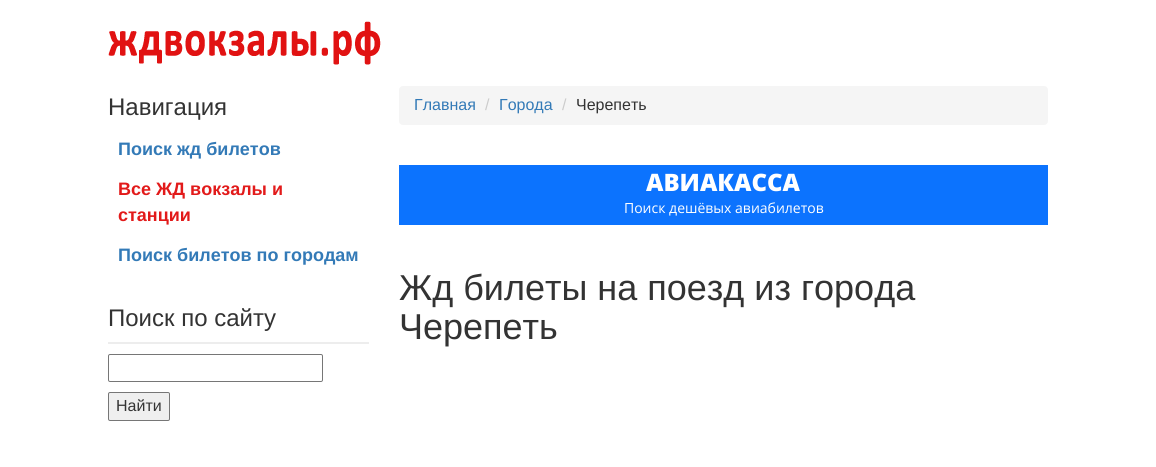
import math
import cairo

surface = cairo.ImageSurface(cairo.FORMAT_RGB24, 1156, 467)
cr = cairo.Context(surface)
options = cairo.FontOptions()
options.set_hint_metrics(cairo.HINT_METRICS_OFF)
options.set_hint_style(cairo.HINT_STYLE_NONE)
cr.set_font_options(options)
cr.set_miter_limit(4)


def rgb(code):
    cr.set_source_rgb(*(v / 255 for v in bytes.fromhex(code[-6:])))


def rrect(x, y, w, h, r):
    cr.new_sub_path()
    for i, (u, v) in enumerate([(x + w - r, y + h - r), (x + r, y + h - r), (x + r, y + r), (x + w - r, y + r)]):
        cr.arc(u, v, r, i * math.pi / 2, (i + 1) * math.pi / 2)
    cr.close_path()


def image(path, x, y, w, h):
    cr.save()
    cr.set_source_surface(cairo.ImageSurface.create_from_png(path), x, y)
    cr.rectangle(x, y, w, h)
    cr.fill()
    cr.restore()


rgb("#ffffff")
cr.paint()
image("img/1.png", 108, 21, 273, 44)
rgb("#ededed")
cr.rectangle(108, 342, 261, 2)
cr.fill()
rrect(108.5, 354.5, 214, 27, 1.5)
rgb("#767676")
cr.set_line_width(1)
cr.stroke()
rgb("#efefef")
rrect(108.5, 392.5, 61, 28, 1.5)
cr.fill_preserve()
rgb("#767676")
cr.stroke()
rgb("#f5f5f5")
rrect(399, 86, 649, 39, 4)
cr.fill()
rgb("#0c73fe")
cr.rectangle(399, 165, 649, 60)
cr.fill()
cr.select_font_face("Liberation Sans")
cr.set_font_size(24)
rgb("#333333")
cr.move_to(108, 115)
cr.show_text("Навигация")
cr.select_font_face("Liberation Sans", cairo.FONT_SLANT_NORMAL, cairo.FONT_WEIGHT_BOLD)
cr.set_font_size(18)
rgb("#337ab7")
cr.move_to(118, 155)
cr.show_text("Поиск жд билетов")
rgb("#e21a1a")
cr.move_to(118, 195)
cr.show_text("Все ЖД вокзалы и")
cr.move_to(118, 221)
cr.show_text("станции")
rgb("#337ab7")
cr.move_to(118, 261)
cr.show_text("Поиск билетов по городам")
cr.select_font_face("Liberation Sans")
cr.set_font_size(24)
rgb("#333333")
cr.move_to(108, 326)
cr.show_text("Поиск по сайту")
cr.set_font_size(16)
cr.move_to(116, 411)
cr.show_text("Найти")
rgb("#337ab7")
cr.move_to(414, 110)
cr.show_text("Главная")
rgb("#cccccc")
cr.move_to(485, 110)
cr.show_text("/")
rgb("#337ab7")
cr.move_to(499, 110)
cr.show_text("Города")
rgb("#cccccc")
cr.move_to(562, 110)
cr.show_text("/")
rgb("#333333")
cr.move_to(576, 110)
cr.show_text("Черепеть")
cr.select_font_face("Open Sans ExtraBold")
cr.set_font_size(24)
rgb("#ffffff")
cr.move_to(646, 191)
cr.show_text("АВИАКАССА")
cr.select_font_face("Open Sans")
cr.set_font_size(14)
cr.move_to(624, 213)
cr.show_text("Поиск дешёвых авиабилетов")
cr.select_font_face("Liberation Sans")
cr.set_font_size(36)
rgb("#333333")
cr.move_to(399, 300)
cr.show_text("Жд билеты на поезд из города")
cr.move_to(399, 339)
cr.show_text("Черепеть")
surface.write_to_png("page.png")
